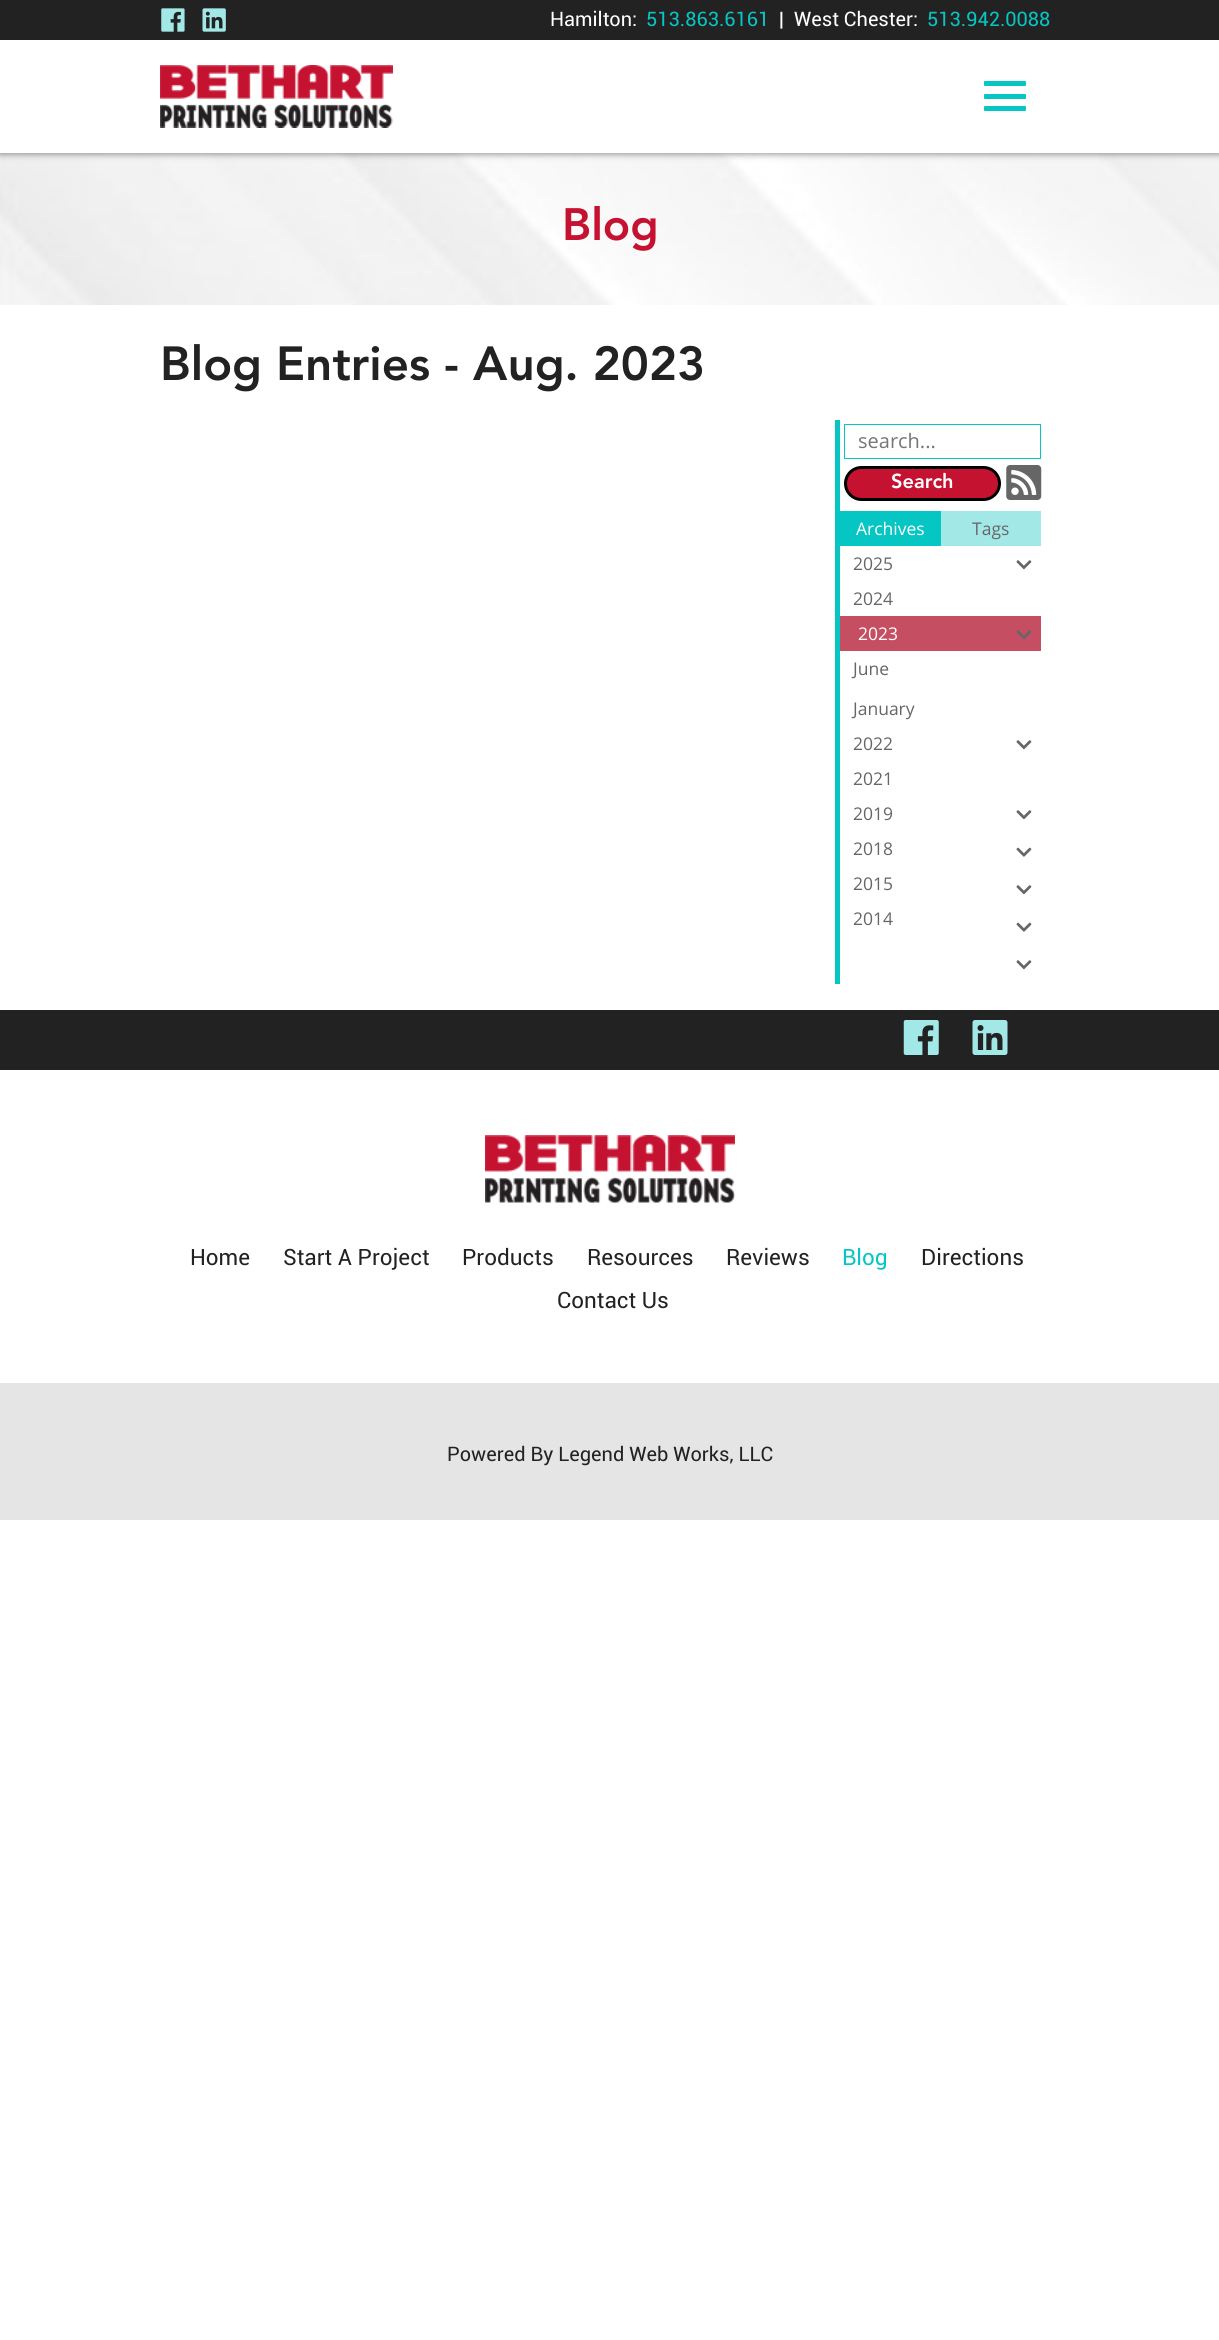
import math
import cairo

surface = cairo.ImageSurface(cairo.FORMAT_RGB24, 1219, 2340)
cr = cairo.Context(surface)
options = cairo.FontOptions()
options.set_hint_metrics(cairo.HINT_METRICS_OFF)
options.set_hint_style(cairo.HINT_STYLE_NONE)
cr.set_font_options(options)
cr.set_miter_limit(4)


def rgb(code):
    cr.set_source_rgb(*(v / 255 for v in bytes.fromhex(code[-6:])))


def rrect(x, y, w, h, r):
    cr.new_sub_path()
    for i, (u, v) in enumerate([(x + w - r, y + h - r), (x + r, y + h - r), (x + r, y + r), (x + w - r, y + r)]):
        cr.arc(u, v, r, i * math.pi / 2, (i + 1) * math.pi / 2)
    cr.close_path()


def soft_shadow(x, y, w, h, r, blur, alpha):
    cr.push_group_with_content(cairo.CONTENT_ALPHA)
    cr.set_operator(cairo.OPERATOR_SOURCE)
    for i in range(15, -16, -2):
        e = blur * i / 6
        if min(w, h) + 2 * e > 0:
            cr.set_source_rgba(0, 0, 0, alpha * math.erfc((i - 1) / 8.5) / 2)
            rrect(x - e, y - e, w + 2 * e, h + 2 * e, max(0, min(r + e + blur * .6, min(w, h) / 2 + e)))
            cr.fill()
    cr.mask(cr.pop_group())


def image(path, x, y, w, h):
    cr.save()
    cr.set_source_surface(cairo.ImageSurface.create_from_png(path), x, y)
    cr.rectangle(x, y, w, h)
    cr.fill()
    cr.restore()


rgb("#ffffff")
cr.paint()
rgb("#222222")
cr.rectangle(0, 0, 1219, 40)
cr.fill()
image("img/1.png", 161, 8, 24, 24)
image("img/2.png", 202, 8, 24, 24)
image("img/4.png", 0, 153, 1219, 152)
rgb("#212121")
soft_shadow(0, 43, 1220, 112, 0, 3, 0.4)
rgb("#ffffff")
cr.rectangle(0, 40, 1219, 113)
cr.fill()
image("img/3.png", 160, 65, 233, 63)
rgb("#06c6c4")
rrect(984, 81, 42, 5, 1)
cr.fill()
rrect(984, 94, 42, 5, 1)
cr.fill()
rrect(984, 106, 42, 5, 1)
cr.fill()
cr.rectangle(835, 420, 5, 564)
cr.fill()
cr.rectangle(844.5, 424.5, 196, 34)
cr.set_line_width(1)
cr.stroke()
rgb("#c41230")
rrect(845.5, 467.5, 154, 32, 16)
cr.fill_preserve()
rgb("#000000")
cr.set_line_width(3)
cr.stroke()
image("img/5.png", 1006, 465, 36, 35)
rgb("#a2e8e7")
cr.rectangle(941, 511, 100, 35)
cr.fill()
rgb("#06c6c4")
cr.rectangle(840, 511, 101, 35)
cr.fill()
image("img/6.png", 1016, 560, 16, 10)
rgb("#c64e62")
cr.rectangle(840, 616, 201, 35)
cr.fill()
image("img/7.png", 1016, 630, 16, 10)
image("img/6.png", 1016, 740, 16, 10)
image("img/6.png", 1016, 810, 16, 10)
image("img/8.png", 1016, 847, 16, 10)
image("img/6.png", 1016, 885, 16, 10)
image("img/8.png", 1016, 922, 16, 10)
image("img/6.png", 1016, 960, 16, 10)
rgb("#e5e5e5")
cr.rectangle(0, 1383, 1219, 137)
cr.fill()
rgb("#222222")
cr.rectangle(0, 1010, 1219, 60)
cr.fill()
image("img/9.png", 903, 1020, 36, 35)
image("img/10.png", 972, 1020, 36, 35)
image("img/11.png", 485, 1135, 250, 68)
cr.select_font_face("Roboto")
cr.set_font_size(20)
rgb("#ffffff")
cr.move_to(550, 26)
cr.show_text("Hamilton:")
rgb("#06c6c4")
cr.move_to(646, 26)
cr.show_text("513.863.6161")
rgb("#ffffff")
cr.move_to(779, 26)
cr.show_text("|")
cr.move_to(794, 26)
cr.show_text("West Chester:")
rgb("#06c6c4")
cr.move_to(927, 26)
cr.show_text("513.942.0088")
cr.select_font_face("Avenir Black")
cr.set_font_size(45)
rgb("#c41230")
cr.move_to(562, 240)
cr.show_text("Blog")
cr.set_font_size(47.5)
rgb("#222222")
cr.move_to(160, 380)
cr.show_text("Blog Entries - Aug. 2023")
cr.select_font_face("Open Sans")
cr.set_font_size(20)
rgb("#757575")
cr.move_to(858, 448)
cr.show_text("search...")
cr.select_font_face("Avenir Black")
rgb("#ffffff")
cr.move_to(891, 488)
cr.show_text("Search")
cr.select_font_face("Open Sans")
cr.set_font_size(17.5)
cr.move_to(856, 535)
cr.show_text("Archives")
rgb("#666666")
for x, y, s in [
    (972, 535, "Tags"),
    (853, 570, "2025"),
    (853, 605, "2024"),
]:
    cr.move_to(x, y)
    cr.show_text(s)
rgb("#ffffff")
cr.move_to(858, 640)
cr.show_text("2023")
rgb("#666666")
for x, y, s in [
    (853, 675, "June"),
    (853, 715, "January"),
    (853, 750, "2022"),
    (853, 785, "2021"),
    (853, 820, "2019"),
    (853, 855, "2018"),
    (853, 890, "2015"),
    (853, 925, "2014"),
]:
    cr.move_to(x, y)
    cr.show_text(s)
cr.select_font_face("Roboto")
cr.set_font_size(22.5)
rgb("#222222")
for x, y, s in [
    (190, 1265, "Home"),
    (283, 1265, "Start A Project"),
    (462, 1265, "Products"),
    (587, 1265, "Resources"),
    (726, 1265, "Reviews"),
]:
    cr.move_to(x, y)
    cr.show_text(s)
rgb("#06c6c4")
cr.move_to(842, 1265)
cr.show_text("Blog")
rgb("#222222")
cr.move_to(921, 1265)
cr.show_text("Directions")
cr.move_to(557, 1308)
cr.show_text("Contact Us")
cr.set_font_size(20)
cr.move_to(447, 1461)
cr.show_text("Powered By Legend Web Works, LLC")
surface.write_to_png("page.png")
